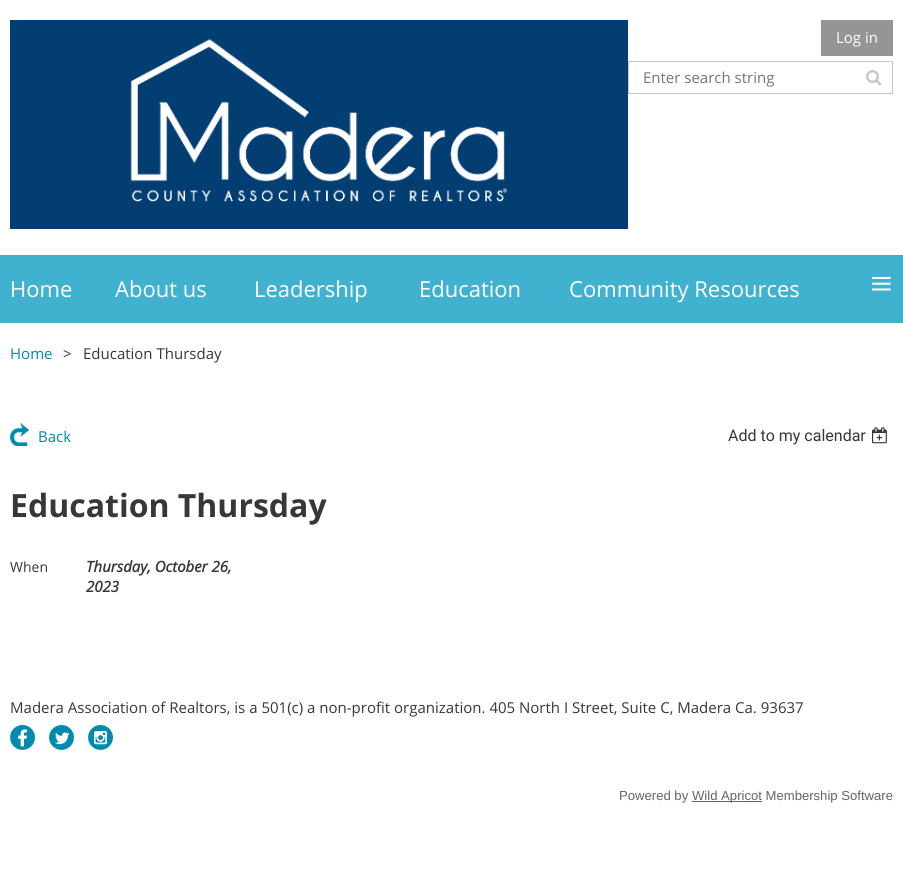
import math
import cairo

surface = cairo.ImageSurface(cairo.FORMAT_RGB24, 903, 880)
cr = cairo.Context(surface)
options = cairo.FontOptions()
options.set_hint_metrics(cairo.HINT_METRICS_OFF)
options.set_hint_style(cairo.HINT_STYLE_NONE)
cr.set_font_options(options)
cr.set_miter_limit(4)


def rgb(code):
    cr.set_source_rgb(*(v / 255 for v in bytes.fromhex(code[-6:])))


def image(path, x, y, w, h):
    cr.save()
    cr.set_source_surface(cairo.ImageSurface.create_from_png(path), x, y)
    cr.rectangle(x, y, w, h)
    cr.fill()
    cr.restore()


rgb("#ffffff")
cr.paint()
image("img/1.png", 10, 20, 618, 209)
rgb("#959595")
cr.rectangle(821, 20, 72, 36)
cr.fill()
cr.rectangle(628.5, 61.5, 264, 32)
rgb("#c6c6c6")
cr.set_line_width(1)
cr.stroke()
image("img/2.png", 866, 70, 16, 16)
rgb("#40b2cf")
cr.rectangle(0, 255, 903, 68)
cr.fill()
image("img/3.png", 10, 423, 19, 23)
image("img/4.png", 872, 427, 15, 17)
image("img/5.png", 10, 725, 25, 25)
image("img/6.png", 49, 725, 25, 25)
image("img/7.png", 88, 725, 25, 25)
rgb("#646464")
cr.rectangle(692, 801, 70, 1)
cr.fill()
cr.select_font_face("Open Sans")
cr.set_font_size(15)
rgb("#ffffff")
cr.move_to(836, 43)
cr.show_text("Log in")
rgb("#757575")
cr.move_to(643, 83)
cr.show_text("Enter search string")
cr.set_font_size(22)
rgb("#ffffff")
for x, y, s in [
    (10, 297, "Home"),
    (115, 297, "About us"),
    (254, 297, "Leadership"),
    (419, 297, "Education"),
    (569, 297, "Community Resources"),
]:
    cr.move_to(x, y)
    cr.show_text(s)
cr.select_font_face("Liberation Serif")
cr.set_font_size(40)
cr.move_to(870, 297)
cr.show_text("≡")
cr.select_font_face("Open Sans")
cr.set_font_size(15)
rgb("#008bae")
cr.move_to(10, 359)
cr.show_text("Home")
rgb("#373737")
cr.move_to(63, 359)
cr.show_text(">")
cr.move_to(83, 359)
cr.show_text("Education Thursday")
rgb("#008bae")
cr.move_to(38, 442)
cr.show_text("Back")
cr.select_font_face("Roboto")
cr.set_font_size(16)
rgb("#373737")
cr.move_to(728, 441)
cr.show_text("Add to my calendar")
cr.select_font_face("Open Sans", cairo.FONT_SLANT_NORMAL, cairo.FONT_WEIGHT_BOLD)
cr.set_font_size(32)
cr.move_to(10, 517)
cr.show_text("Education Thursday")
cr.select_font_face("Open Sans")
cr.set_font_size(14)
cr.move_to(10, 572)
cr.show_text("When")
cr.select_font_face("Open Sans", cairo.FONT_SLANT_ITALIC, cairo.FONT_WEIGHT_BOLD)
cr.set_font_size(15)
cr.move_to(86, 572)
cr.show_text("Thursday, October 26,")
cr.move_to(86, 592)
cr.show_text("2023")
cr.select_font_face("Open Sans")
cr.move_to(10, 713)
cr.show_text("Madera Association of Realtors, is a 501(c) a non-profit organization. 405 North I Street, Suite C, Madera Ca. 93637")
cr.select_font_face("Liberation Sans")
cr.set_font_size(13.1)
rgb("#646464")
cr.move_to(619, 800)
cr.show_text("Powered by")
cr.move_to(692, 800)
cr.show_text("Wild Apricot Membership Software")
surface.write_to_png("page.png")
